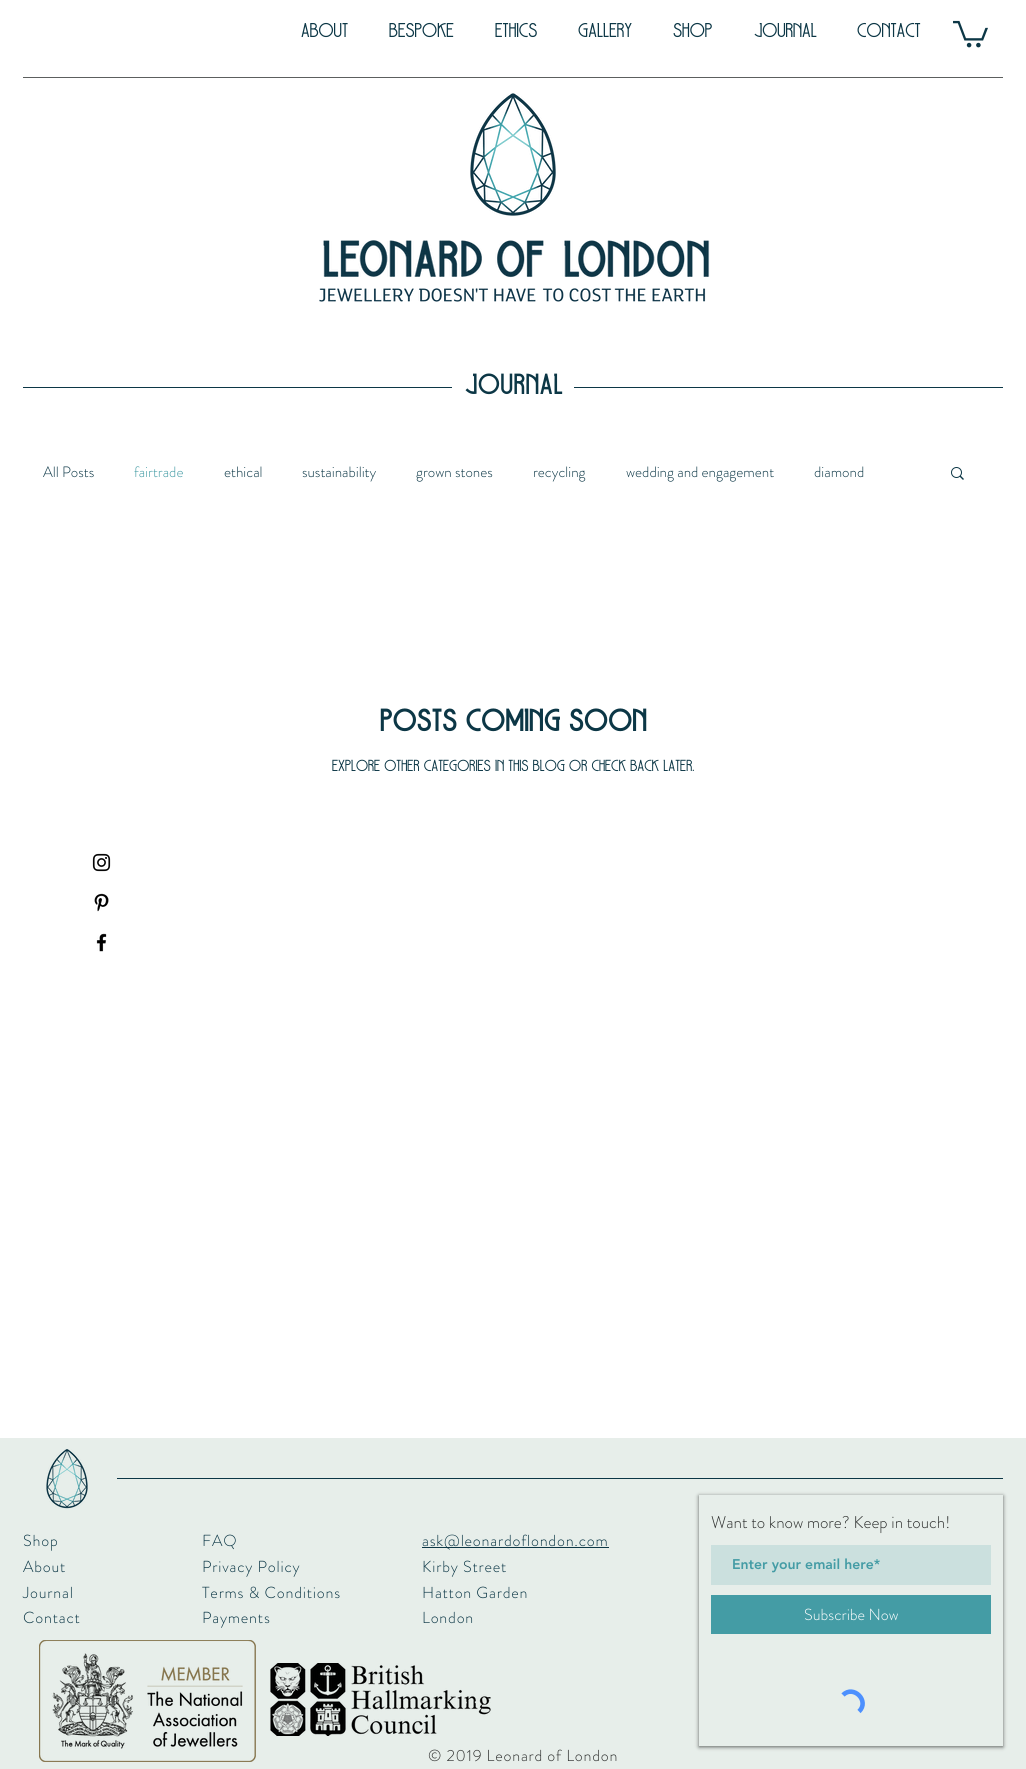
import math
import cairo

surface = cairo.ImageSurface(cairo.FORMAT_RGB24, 1026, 1769)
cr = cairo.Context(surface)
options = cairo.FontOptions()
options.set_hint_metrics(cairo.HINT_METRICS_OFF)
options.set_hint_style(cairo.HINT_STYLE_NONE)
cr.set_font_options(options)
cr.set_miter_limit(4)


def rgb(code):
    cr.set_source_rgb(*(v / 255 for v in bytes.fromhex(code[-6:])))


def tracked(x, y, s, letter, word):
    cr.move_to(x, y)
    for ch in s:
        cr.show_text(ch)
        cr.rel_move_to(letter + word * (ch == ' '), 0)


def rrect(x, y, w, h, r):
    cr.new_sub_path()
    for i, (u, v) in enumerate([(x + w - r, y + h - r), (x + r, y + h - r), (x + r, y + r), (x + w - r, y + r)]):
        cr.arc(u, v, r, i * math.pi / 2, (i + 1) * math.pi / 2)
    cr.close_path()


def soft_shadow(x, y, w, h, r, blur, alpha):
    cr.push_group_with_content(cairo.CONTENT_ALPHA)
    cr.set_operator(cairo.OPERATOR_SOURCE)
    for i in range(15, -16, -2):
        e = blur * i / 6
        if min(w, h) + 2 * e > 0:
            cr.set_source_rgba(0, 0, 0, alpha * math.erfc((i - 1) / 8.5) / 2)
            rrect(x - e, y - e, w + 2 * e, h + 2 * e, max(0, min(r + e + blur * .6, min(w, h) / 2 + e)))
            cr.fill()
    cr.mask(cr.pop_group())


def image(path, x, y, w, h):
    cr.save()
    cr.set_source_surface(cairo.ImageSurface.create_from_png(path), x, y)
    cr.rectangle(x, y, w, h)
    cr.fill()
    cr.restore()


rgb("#ffffff")
cr.paint()
image("img/1.png", 953, 20, 35, 28)
rgb("#5c5f5e")
cr.rectangle(23, 77, 980, 1)
cr.fill()
image("img/2.png", 470, 93, 86, 123)
image("img/3.png", 323, 240, 387, 38)
image("img/4.png", 319, 288, 387, 14)
rgb("#0c3746")
cr.rectangle(23, 387, 429, 1)
cr.fill()
cr.rectangle(574, 387, 429, 1)
cr.fill()
image("img/5.png", 951, 467, 13, 13)
image("img/6.png", 92, 853, 19, 19)
image("img/7.png", 94, 893, 15, 19)
image("img/8.png", 96, 933, 11, 19)
rgb("#e7eeea")
cr.rectangle(0, 1438, 1026, 331)
cr.fill()
image("img/9.png", 46, 1449, 42, 60)
rgb("#0c3746")
cr.rectangle(117, 1478, 886, 1)
cr.fill()
cr.rectangle(422, 1547, 187, 1)
cr.fill()
cr.save()
cr.set_fill_rule(cairo.FILL_RULE_EVEN_ODD)
cr.new_path()
cr.move_to(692, 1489)
cr.line_to(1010, 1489)
cr.line_to(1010, 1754)
cr.line_to(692, 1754)
cr.close_path()
cr.move_to(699, 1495)
cr.line_to(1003, 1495)
cr.line_to(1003, 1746)
cr.line_to(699, 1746)
cr.close_path()
cr.clip()
rgb("#000000")
soft_shadow(699, 1496, 304, 251, 0, 2, 0.6)
cr.restore()
rgb("#cbe0de")
cr.rectangle(711, 1545, 280, 40)
cr.fill()
rgb("#449ca5")
cr.rectangle(711, 1595, 280, 39)
cr.fill()
cr.new_path()
cr.move_to(843, 1695)
cr.curve_to(853.5, 1684.5, 870, 1701, 859, 1711.5)
rgb("#4d90fe")
cr.set_line_width(4.6)
cr.stroke()
image("img/10.png", 39, 1640, 217, 122)
image("img/11.png", 270, 1663, 221, 73)
cr.select_font_face("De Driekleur")
cr.set_font_size(20)
rgb("#0c3746")
for x, y, s in [
    (301, 37, "ABOUT"),
    (389, 37, "BESPOKE"),
    (495, 37, "ETHICS"),
    (578, 37, "GALLERY"),
    (673, 37, "SHOP"),
    (754, 37, "JOURNAL"),
    (857, 37, "CONTACT"),
]:
    cr.move_to(x, y)
    cr.show_text(s)
cr.select_font_face("De Driekleur", cairo.FONT_SLANT_NORMAL, cairo.FONT_WEIGHT_BOLD)
cr.set_font_size(28)
tracked(465, 394, "JOURNAL", 1.5, 0)
cr.select_font_face("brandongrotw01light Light")
cr.set_font_size(15)
cr.move_to(43, 477)
cr.show_text("All Posts")
rgb("#449ca5")
cr.move_to(134, 477)
cr.show_text("fairtrade")
rgb("#0c3746")
for x, y, s in [
    (224, 477, "ethical"),
    (302, 477, "sustainability"),
    (416, 477, "grown stones"),
    (533, 477, "recycling"),
    (626, 477, "wedding and engagement"),
    (814, 477, "diamond"),
]:
    cr.move_to(x, y)
    cr.show_text(s)
cr.select_font_face("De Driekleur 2", cairo.FONT_SLANT_NORMAL, cairo.FONT_WEIGHT_BOLD)
cr.set_font_size(32)
cr.move_to(380, 731)
cr.show_text("Posts Coming Soon")
cr.select_font_face("De Driekleur")
cr.set_font_size(16)
cr.move_to(332, 771)
cr.show_text("Explore other categories in this blog or check back later.")
cr.select_font_face("brandongrotw01light Light")
for x, y, s in [
    (23, 1546, "Shop"),
    (23, 1572, "About"),
    (23, 1598, "Journal"),
    (23, 1623, "Contact"),
    (202, 1546, "FAQ"),
    (202, 1572, "Privacy Policy"),
    (202, 1598, "Terms & Conditions"),
    (202, 1623, "Payments"),
    (422, 1546, "ask@leonardoflondon.com"),
    (422, 1572, "Kirby Street"),
    (422, 1598, "Hatton Garden"),
    (422, 1623, "London"),
]:
    tracked(x, y, s, 0.8, 0)
cr.set_font_size(17)
rgb("#2e302f")
cr.move_to(711, 1528)
cr.show_text("Want to know more? Keep in touch!")
cr.select_font_face("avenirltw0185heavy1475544 Black")
cr.set_font_size(14)
rgb("#449ca5")
cr.move_to(732, 1569)
cr.show_text("Enter your email here*")
cr.select_font_face("brandongrotw01light Light")
cr.set_font_size(16)
rgb("#ffffff")
cr.move_to(804, 1620)
cr.show_text("Subscribe Now")
rgb("#2e302f")
tracked(428, 1761, "© 2019 Leonard of London", 0.8, 0)
surface.write_to_png("page.png")
